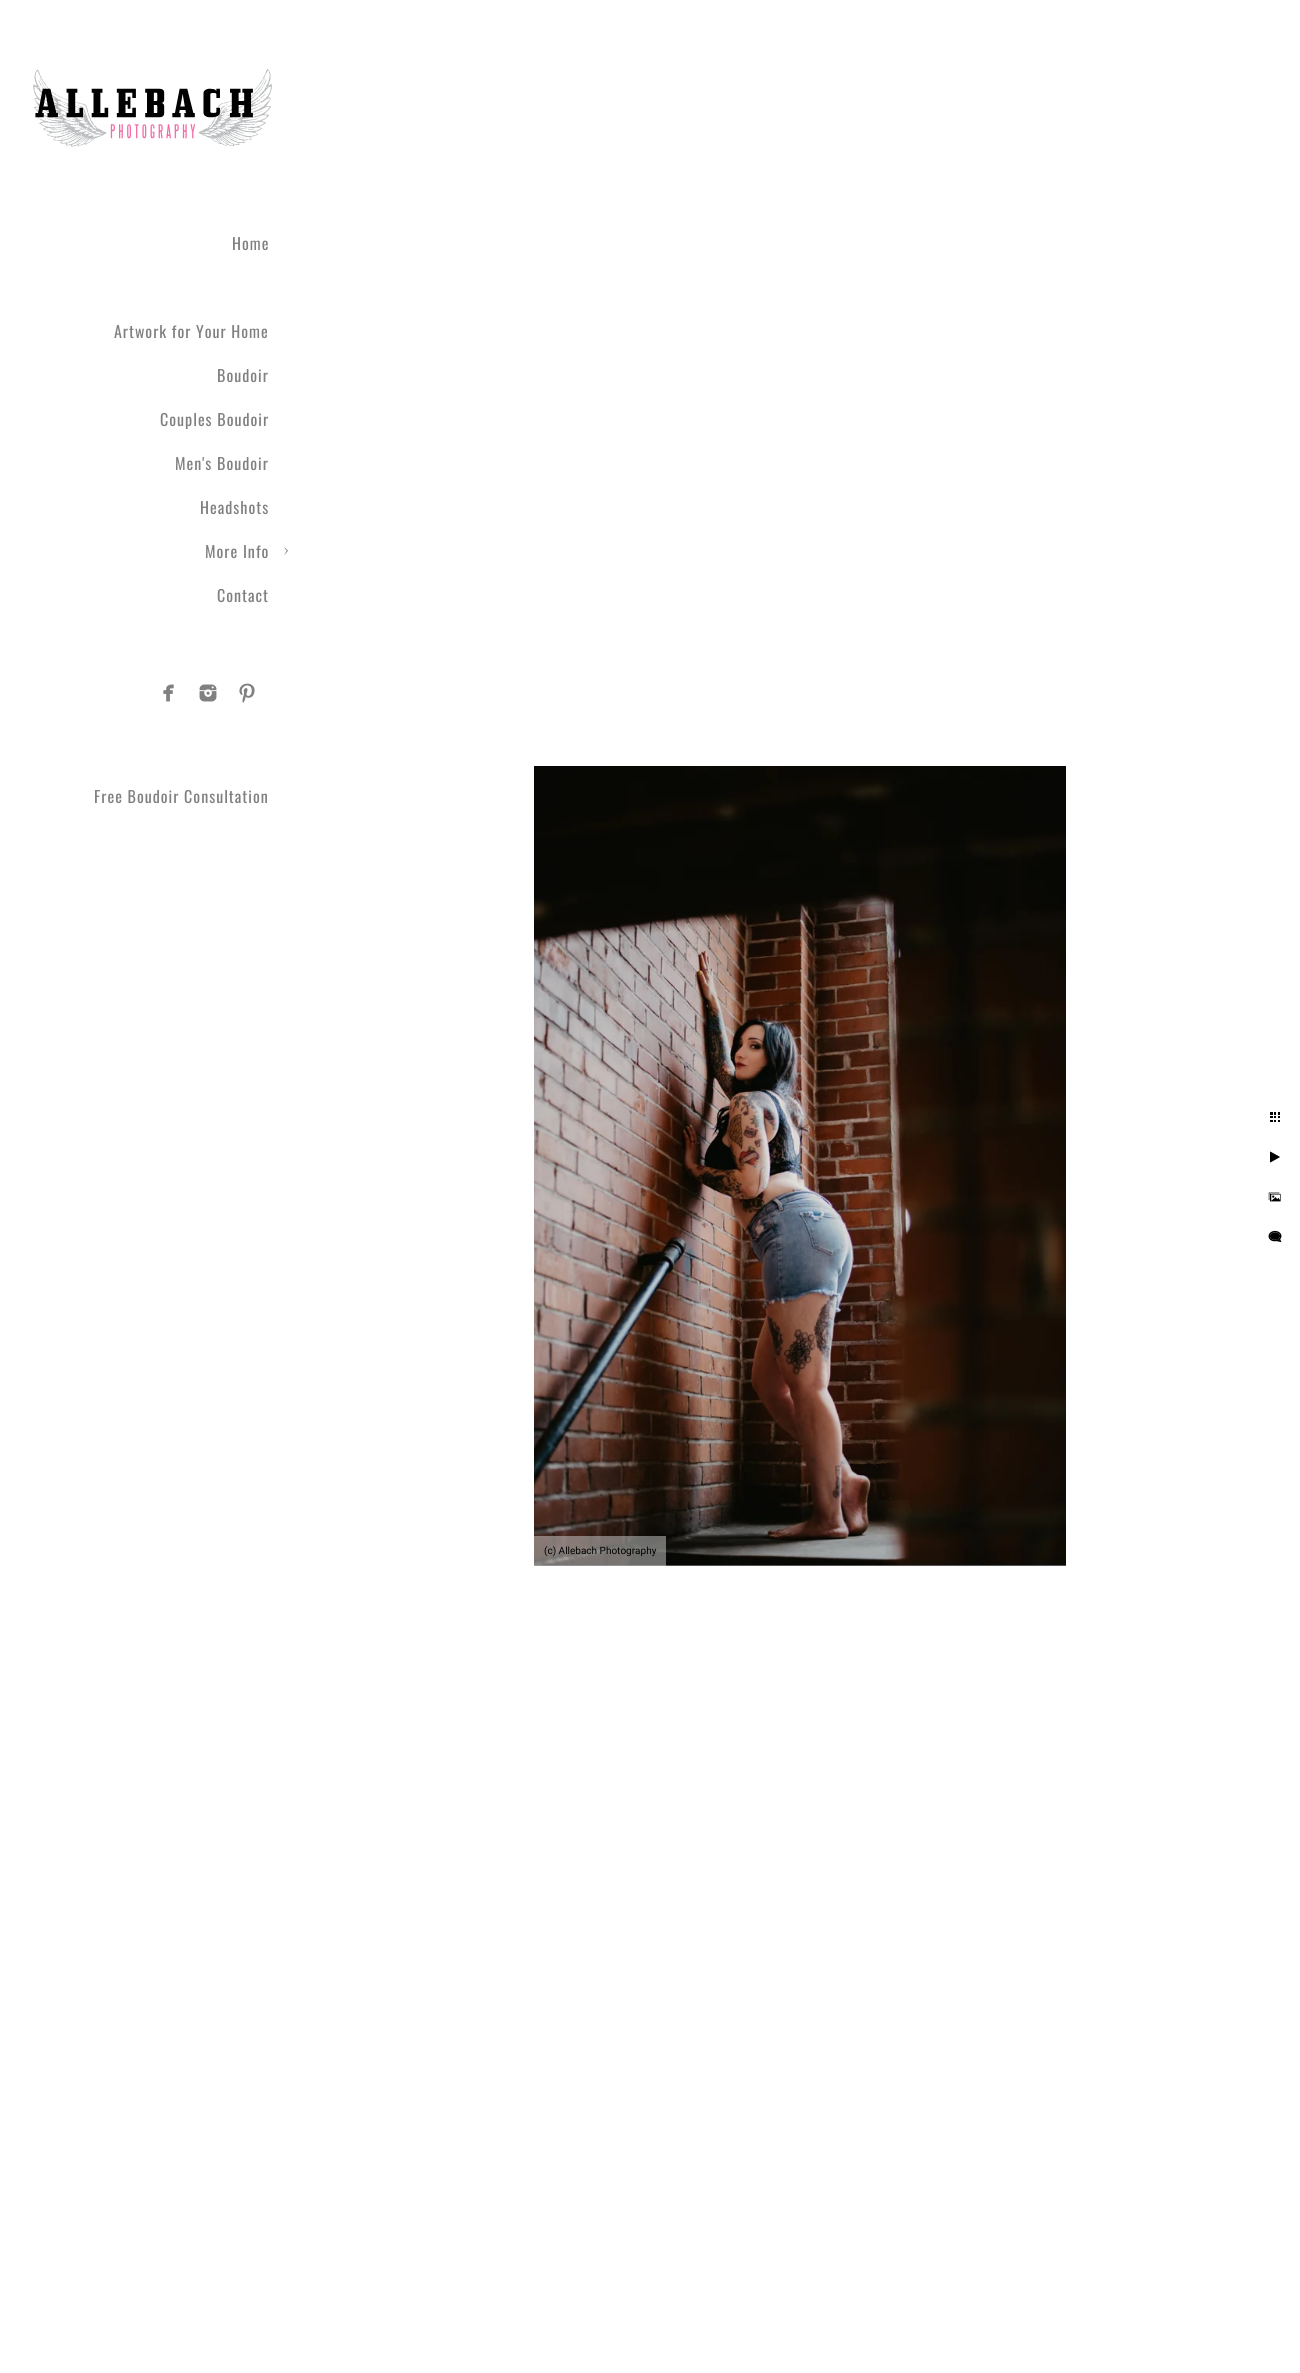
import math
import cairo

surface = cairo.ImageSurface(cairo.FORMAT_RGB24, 1300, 2373)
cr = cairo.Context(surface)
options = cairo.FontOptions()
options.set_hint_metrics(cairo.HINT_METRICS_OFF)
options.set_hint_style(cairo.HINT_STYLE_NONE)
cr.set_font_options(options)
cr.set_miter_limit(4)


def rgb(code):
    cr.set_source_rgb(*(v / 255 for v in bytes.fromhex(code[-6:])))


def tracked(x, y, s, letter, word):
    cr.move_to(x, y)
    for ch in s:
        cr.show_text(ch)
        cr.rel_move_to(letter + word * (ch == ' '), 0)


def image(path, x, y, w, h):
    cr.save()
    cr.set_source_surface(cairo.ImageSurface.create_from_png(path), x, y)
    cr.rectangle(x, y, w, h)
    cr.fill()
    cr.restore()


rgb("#ffffff")
cr.paint()
image("img/1.png", 33, 69, 239, 78)
image("img/2.png", 284, 547, 4, 8)
image("img/3.png", 163, 684, 11, 18)
image("img/4.png", 199, 684, 18, 18)
image("img/5.png", 239, 683, 16, 20)
image("img/6.png", 1270, 1112, 10, 10)
image("img/7.png", 1270, 1151, 10, 12)
image("img/8.png", 1268, 1192, 13, 10)
image("img/9.png", 1268, 1230, 14, 13)
image("img/10.png", 534, 766, 532, 800)
cr.set_source_rgba(0.827, 0.827, 0.827, 0.5)
cr.rectangle(534, 1536, 132, 30)
cr.fill()
cr.select_font_face("Oswald")
cr.set_font_size(16)
rgb("#808080")
for x, y, s in [
    (232, 250, "Home"),
    (114, 338, "Artwork for Your Home"),
    (217, 382, "Boudoir"),
    (160, 426, "Couples Boudoir"),
    (175, 470, "Men's Boudoir"),
    (200, 514, "Headshots"),
    (205, 558, "More Info"),
    (217, 602, "Contact"),
    (94, 803, "Free Boudoir Consultation"),
]:
    tracked(x, y, s, 1, 0)
cr.select_font_face("Roboto")
cr.set_font_size(10)
rgb("#000000")
cr.move_to(544, 1554)
cr.show_text("(c) Allebach Photography")
surface.write_to_png("page.png")
